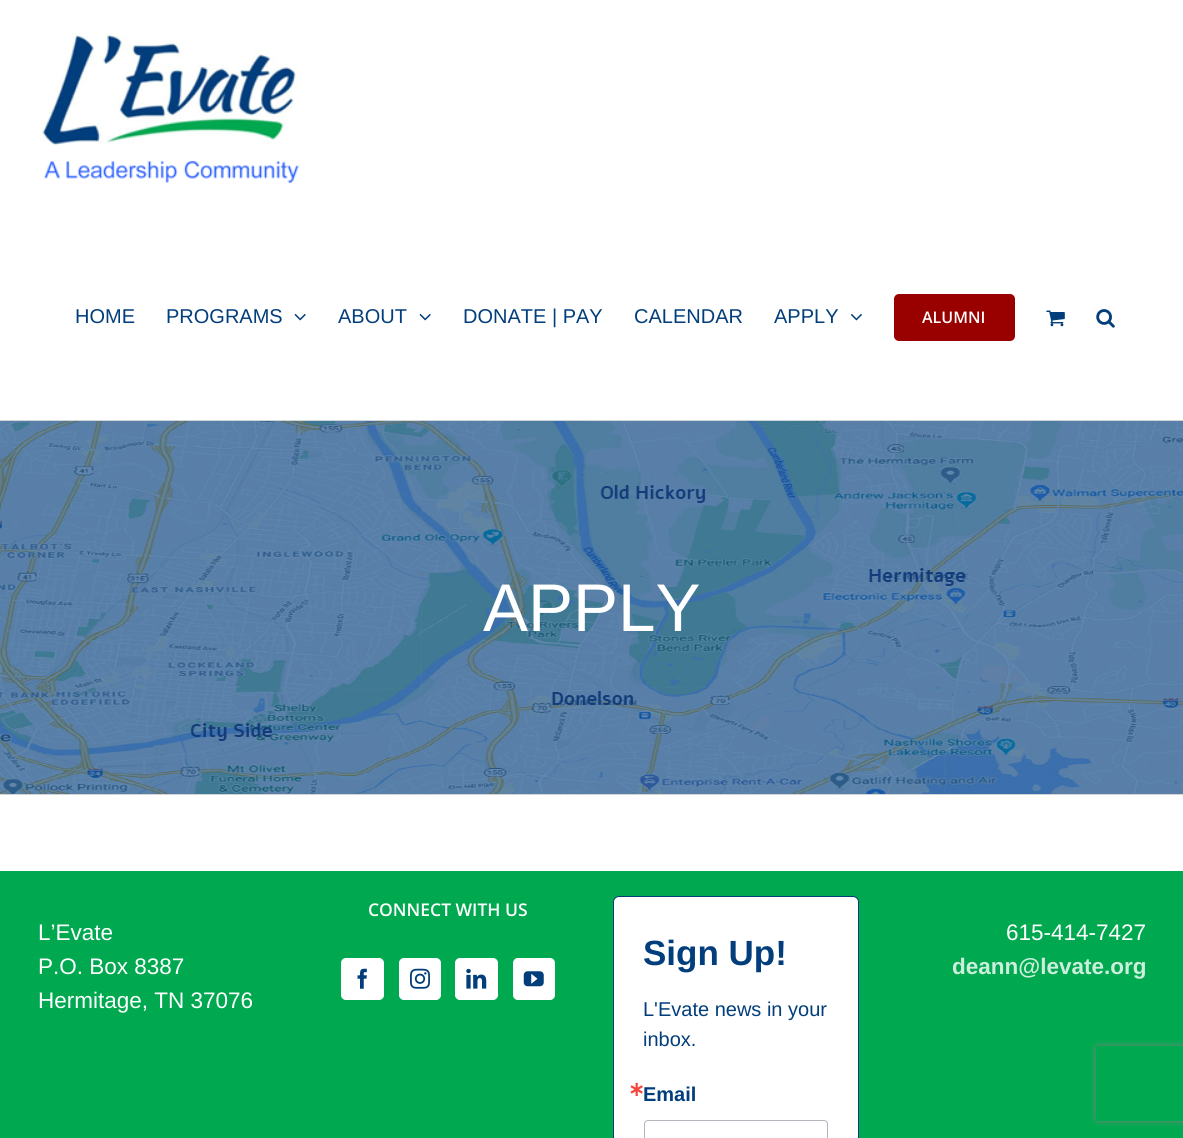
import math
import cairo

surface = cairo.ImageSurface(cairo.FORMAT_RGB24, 1183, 1138)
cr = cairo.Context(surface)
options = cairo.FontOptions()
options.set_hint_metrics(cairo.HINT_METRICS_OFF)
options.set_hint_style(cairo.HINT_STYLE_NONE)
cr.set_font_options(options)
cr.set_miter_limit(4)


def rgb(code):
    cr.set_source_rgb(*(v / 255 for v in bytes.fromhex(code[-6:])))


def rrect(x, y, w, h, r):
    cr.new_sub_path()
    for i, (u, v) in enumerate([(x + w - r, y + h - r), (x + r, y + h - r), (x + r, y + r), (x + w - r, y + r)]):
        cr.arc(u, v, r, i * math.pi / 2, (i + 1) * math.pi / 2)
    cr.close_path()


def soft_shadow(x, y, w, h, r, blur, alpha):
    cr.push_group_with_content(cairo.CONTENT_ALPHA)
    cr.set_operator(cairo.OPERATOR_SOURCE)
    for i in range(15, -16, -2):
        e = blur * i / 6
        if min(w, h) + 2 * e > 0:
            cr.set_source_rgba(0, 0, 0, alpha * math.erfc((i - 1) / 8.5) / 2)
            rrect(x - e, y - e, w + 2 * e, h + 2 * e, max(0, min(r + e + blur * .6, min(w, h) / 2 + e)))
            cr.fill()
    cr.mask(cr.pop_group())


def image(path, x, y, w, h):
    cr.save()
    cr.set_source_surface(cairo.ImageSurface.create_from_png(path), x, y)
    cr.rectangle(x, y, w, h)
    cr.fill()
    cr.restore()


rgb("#ffffff")
cr.paint()
image("img/1.png", 39, 33, 261, 151)
image("img/2.png", 294, 313, 12, 8)
image("img/2.png", 419, 313, 12, 8)
image("img/3.png", 850, 313, 12, 8)
rgb("#990000")
rrect(894, 294, 121, 47, 5)
cr.fill()
image("img/4.png", 1046, 310, 19, 17)
image("img/5.png", 1096, 309, 19, 19)
image("img/6.png", 0, 421, 1183, 373)
for x, y, w, h, color in [
    (0, 420, 1183, 1, "#d2d3d4"),
    (0, 794, 1183, 1, "#d2d3d4"),
    (0, 871, 1183, 267, "#00a950"),
]:
    rgb(color)
    cr.rectangle(x, y, w, h)
    cr.fill()
rgb("#ffffff")
rrect(341.5, 958.5, 42, 41, 4.5)
cr.fill_preserve()
cr.set_line_width(1)
cr.stroke()
image("img/7.png", 357, 968, 10, 21)
rrect(399.5, 958.5, 41, 41, 4.5)
cr.fill_preserve()
cr.stroke()
image("img/8.png", 410, 968, 20, 21)
rrect(455.5, 958.5, 42, 41, 4.5)
cr.fill_preserve()
cr.stroke()
image("img/9.png", 466, 968, 21, 21)
rrect(513.5, 958.5, 41, 41, 4.5)
cr.fill_preserve()
cr.stroke()
image("img/10.png", 523, 971, 21, 16)
rrect(613.5, 896.5, 245, 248, 5.5)
cr.fill_preserve()
rgb("#023e7b")
cr.stroke()
rrect(644.5, 1120.5, 183, 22, 3.5)
rgb("#b0b6bb")
cr.stroke()
cr.save()
cr.set_fill_rule(cairo.FILL_RULE_EVEN_ODD)
cr.new_path()
cr.move_to(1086, 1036)
cr.line_to(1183, 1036)
cr.line_to(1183, 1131)
cr.line_to(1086, 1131)
cr.close_path()
cr.move_to(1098.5, 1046)
cr.line_to(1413.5, 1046)
cr.curve_to(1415, 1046, 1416, 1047, 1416, 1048.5)
cr.line_to(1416, 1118.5)
cr.curve_to(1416, 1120, 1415, 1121, 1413.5, 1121)
cr.line_to(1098.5, 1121)
cr.curve_to(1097, 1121, 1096, 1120, 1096, 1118.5)
cr.line_to(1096, 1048.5)
cr.curve_to(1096, 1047, 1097, 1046, 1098.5, 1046)
cr.close_path()
cr.clip()
rgb("#808080")
soft_shadow(1096, 1046, 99, 75, 2.5, 3, 1)
cr.restore()
cr.select_font_face("Liberation Sans")
cr.set_font_size(20)
rgb("#023e7b")
for x, y, s in [
    (75, 323, "HOME"),
    (166, 323, "PROGRAMS"),
    (338, 323, "ABOUT"),
    (463, 323, "DONATE | PAY"),
    (634, 323, "CALENDAR"),
    (774, 323, "APPLY"),
]:
    cr.move_to(x, y)
    cr.show_text(s)
cr.select_font_face("Open Sans SemiBold")
cr.set_font_size(16)
rgb("#ffffff")
cr.move_to(922, 323)
cr.show_text("ALUMNI")
cr.select_font_face("Liberation Sans")
cr.set_font_size(67.5)
cr.move_to(483, 631)
cr.show_text("APPLY")
cr.select_font_face("Open Sans SemiBold")
cr.set_font_size(17.5)
cr.move_to(368, 916)
cr.show_text("CONNECT WITH US")
cr.select_font_face("Liberation Sans")
cr.set_font_size(22.5)
for x, y, s in [
    (38, 940, "L’Evate"),
    (38, 974, "P.O. Box 8387"),
    (38, 1008, "Hermitage, TN 37076"),
]:
    cr.move_to(x, y)
    cr.show_text(s)
cr.select_font_face("Liberation Sans", cairo.FONT_SLANT_NORMAL, cairo.FONT_WEIGHT_BOLD)
cr.set_font_size(35)
rgb("#023e7b")
cr.move_to(643, 965)
cr.show_text("Sign Up!")
cr.select_font_face("Liberation Sans")
cr.set_font_size(20)
cr.move_to(643, 1016)
cr.show_text("L'Evate news in your")
cr.move_to(643, 1046)
cr.show_text("inbox.")
cr.select_font_face("DejaVu Sans", cairo.FONT_SLANT_NORMAL, cairo.FONT_WEIGHT_BOLD)
rgb("#f5463b")
cr.move_to(628, 1096)
cr.show_text("∗")
cr.select_font_face("Liberation Sans", cairo.FONT_SLANT_NORMAL, cairo.FONT_WEIGHT_BOLD)
rgb("#023e7b")
cr.move_to(643, 1101)
cr.show_text("Email")
cr.select_font_face("Liberation Sans")
cr.set_font_size(22.5)
rgb("#ffffff")
cr.move_to(1006, 940)
cr.show_text("615-414-7427")
cr.select_font_face("Liberation Sans", cairo.FONT_SLANT_NORMAL, cairo.FONT_WEIGHT_BOLD)
rgb("#cceedc")
cr.move_to(952, 974)
cr.show_text("deann@levate.org")
surface.write_to_png("page.png")
